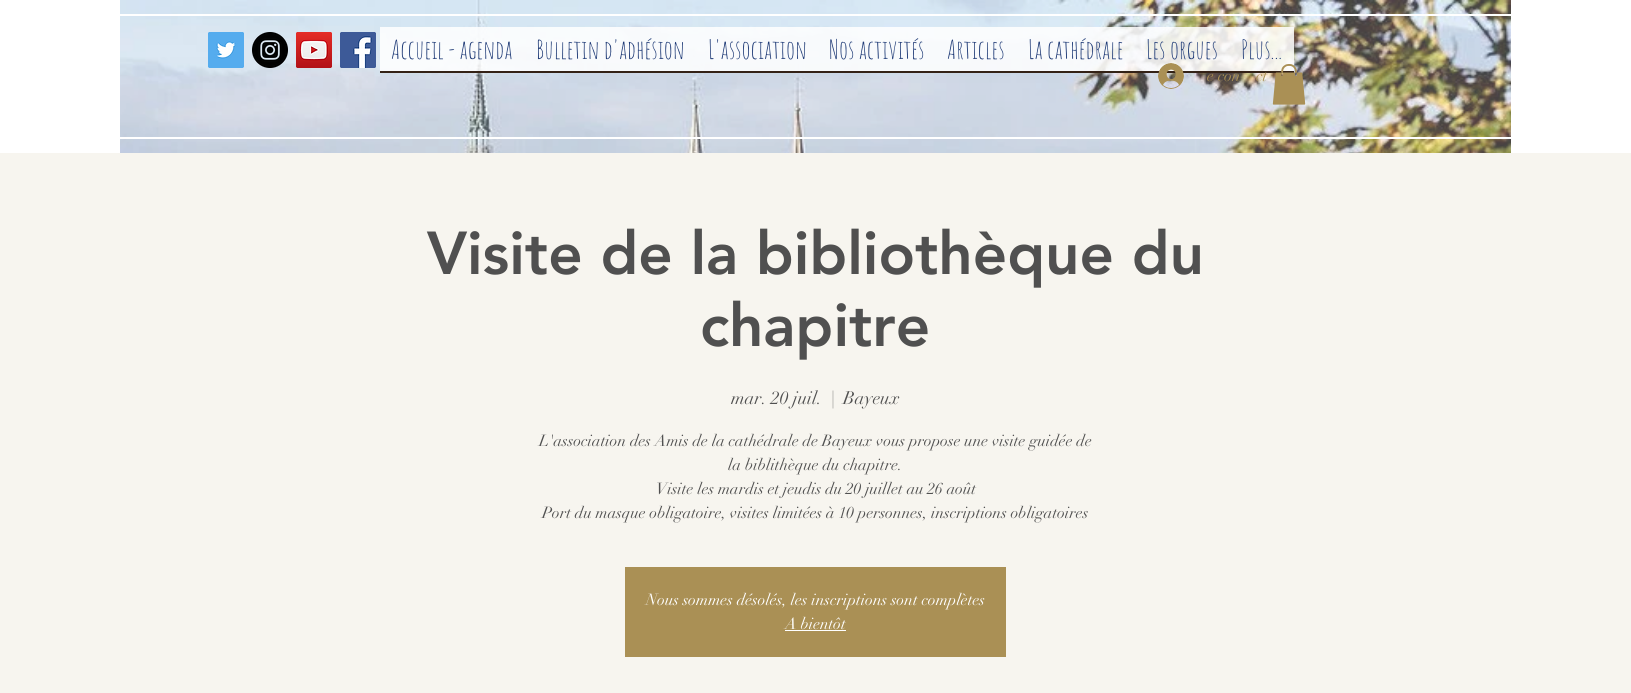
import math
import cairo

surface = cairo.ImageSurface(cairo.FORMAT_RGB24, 1631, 693)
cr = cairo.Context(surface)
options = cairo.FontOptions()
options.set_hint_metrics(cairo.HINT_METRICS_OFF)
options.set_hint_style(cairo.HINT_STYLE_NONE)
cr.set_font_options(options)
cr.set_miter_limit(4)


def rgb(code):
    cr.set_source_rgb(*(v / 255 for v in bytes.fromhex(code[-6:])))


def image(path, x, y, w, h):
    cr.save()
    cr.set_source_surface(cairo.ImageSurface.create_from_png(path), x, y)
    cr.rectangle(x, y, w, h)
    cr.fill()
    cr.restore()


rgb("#ffffff")
cr.paint()
image("img/1.png", 120, 0, 1391, 153)
rgb("#ffffff")
cr.rectangle(120, 14, 1391, 2)
cr.fill()
cr.rectangle(120, 137, 1391, 2)
cr.fill()
image("img/2.png", 208, 32, 36, 36)
image("img/3.png", 252, 32, 36, 36)
image("img/4.png", 296, 32, 36, 36)
image("img/5.png", 340, 32, 36, 36)
cr.set_source_rgba(1, 1, 1, 0.86)
cr.rectangle(380, 27, 914, 44)
cr.fill()
rgb("#342216")
cr.rectangle(380, 71, 914, 1)
cr.rectangle(380, 72, 914, 1)
cr.fill()
image("img/6.png", 1158, 63, 26, 26)
image("img/7.png", 1272, 64, 34, 41)
for x, y, w, h, color in [
    (0, 153, 1631, 540, "#f7f5ef"),
    (625, 567, 381, 90, "#aa9055"),
    (785, 630, 61, 1, "#ffffff"),
]:
    rgb(color)
    cr.rectangle(x, y, w, h)
    cr.fill()
cr.select_font_face("Amatic SC")
cr.set_font_size(26)
rgb("#1e3a76")
for x, y, s in [
    (391, 59, "Accueil - agenda"),
    (536, 59, "Bulletin d'adhésion"),
    (708, 59, "L'association"),
    (829, 59, "Nos activités"),
    (947, 59, "Articles"),
    (1028, 59, "La cathédrale"),
    (1146, 59, "Les orgues"),
    (1241, 59, "Plus..."),
]:
    cr.move_to(x, y)
    cr.show_text(s)
cr.select_font_face("didot")
cr.set_font_size(16)
rgb("#aa9055")
cr.move_to(1207, 81)
cr.show_text("e con")
cr.move_to(1256, 81)
cr.show_text("ct")
cr.select_font_face("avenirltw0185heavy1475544 Black")
cr.set_font_size(60)
rgb("#505050")
cr.move_to(427, 274)
cr.show_text("Visite de la bibliothèque du")
cr.move_to(700, 346)
cr.show_text("chapitre")
cr.select_font_face("didot")
cr.set_font_size(18)
for x, y, s in [
    (731, 404, "mar. 20 juil."),
    (831, 404, "|"),
    (843, 404, "Bayeux"),
]:
    cr.move_to(x, y)
    cr.show_text(s)
cr.set_font_size(16)
for x, y, s in [
    (539, 446, "L'association des Amis de la cathédrale de Bayeux vous propose une visite guidée de"),
    (728, 470, "la biblithèque du chapitre."),
    (656, 494, "Visite les mardis et jeudis du 20 juillet au 26 août"),
    (542, 518, "Port du masque obligatoire, visites limitées à 10 personnes, inscriptions obligatoires"),
]:
    cr.move_to(x, y)
    cr.show_text(s)
rgb("#ffffff")
cr.move_to(646, 605)
cr.show_text("Nous sommes désolés, les inscriptions sont complètes")
cr.move_to(785, 629)
cr.show_text("A bientôt")
surface.write_to_png("page.png")
